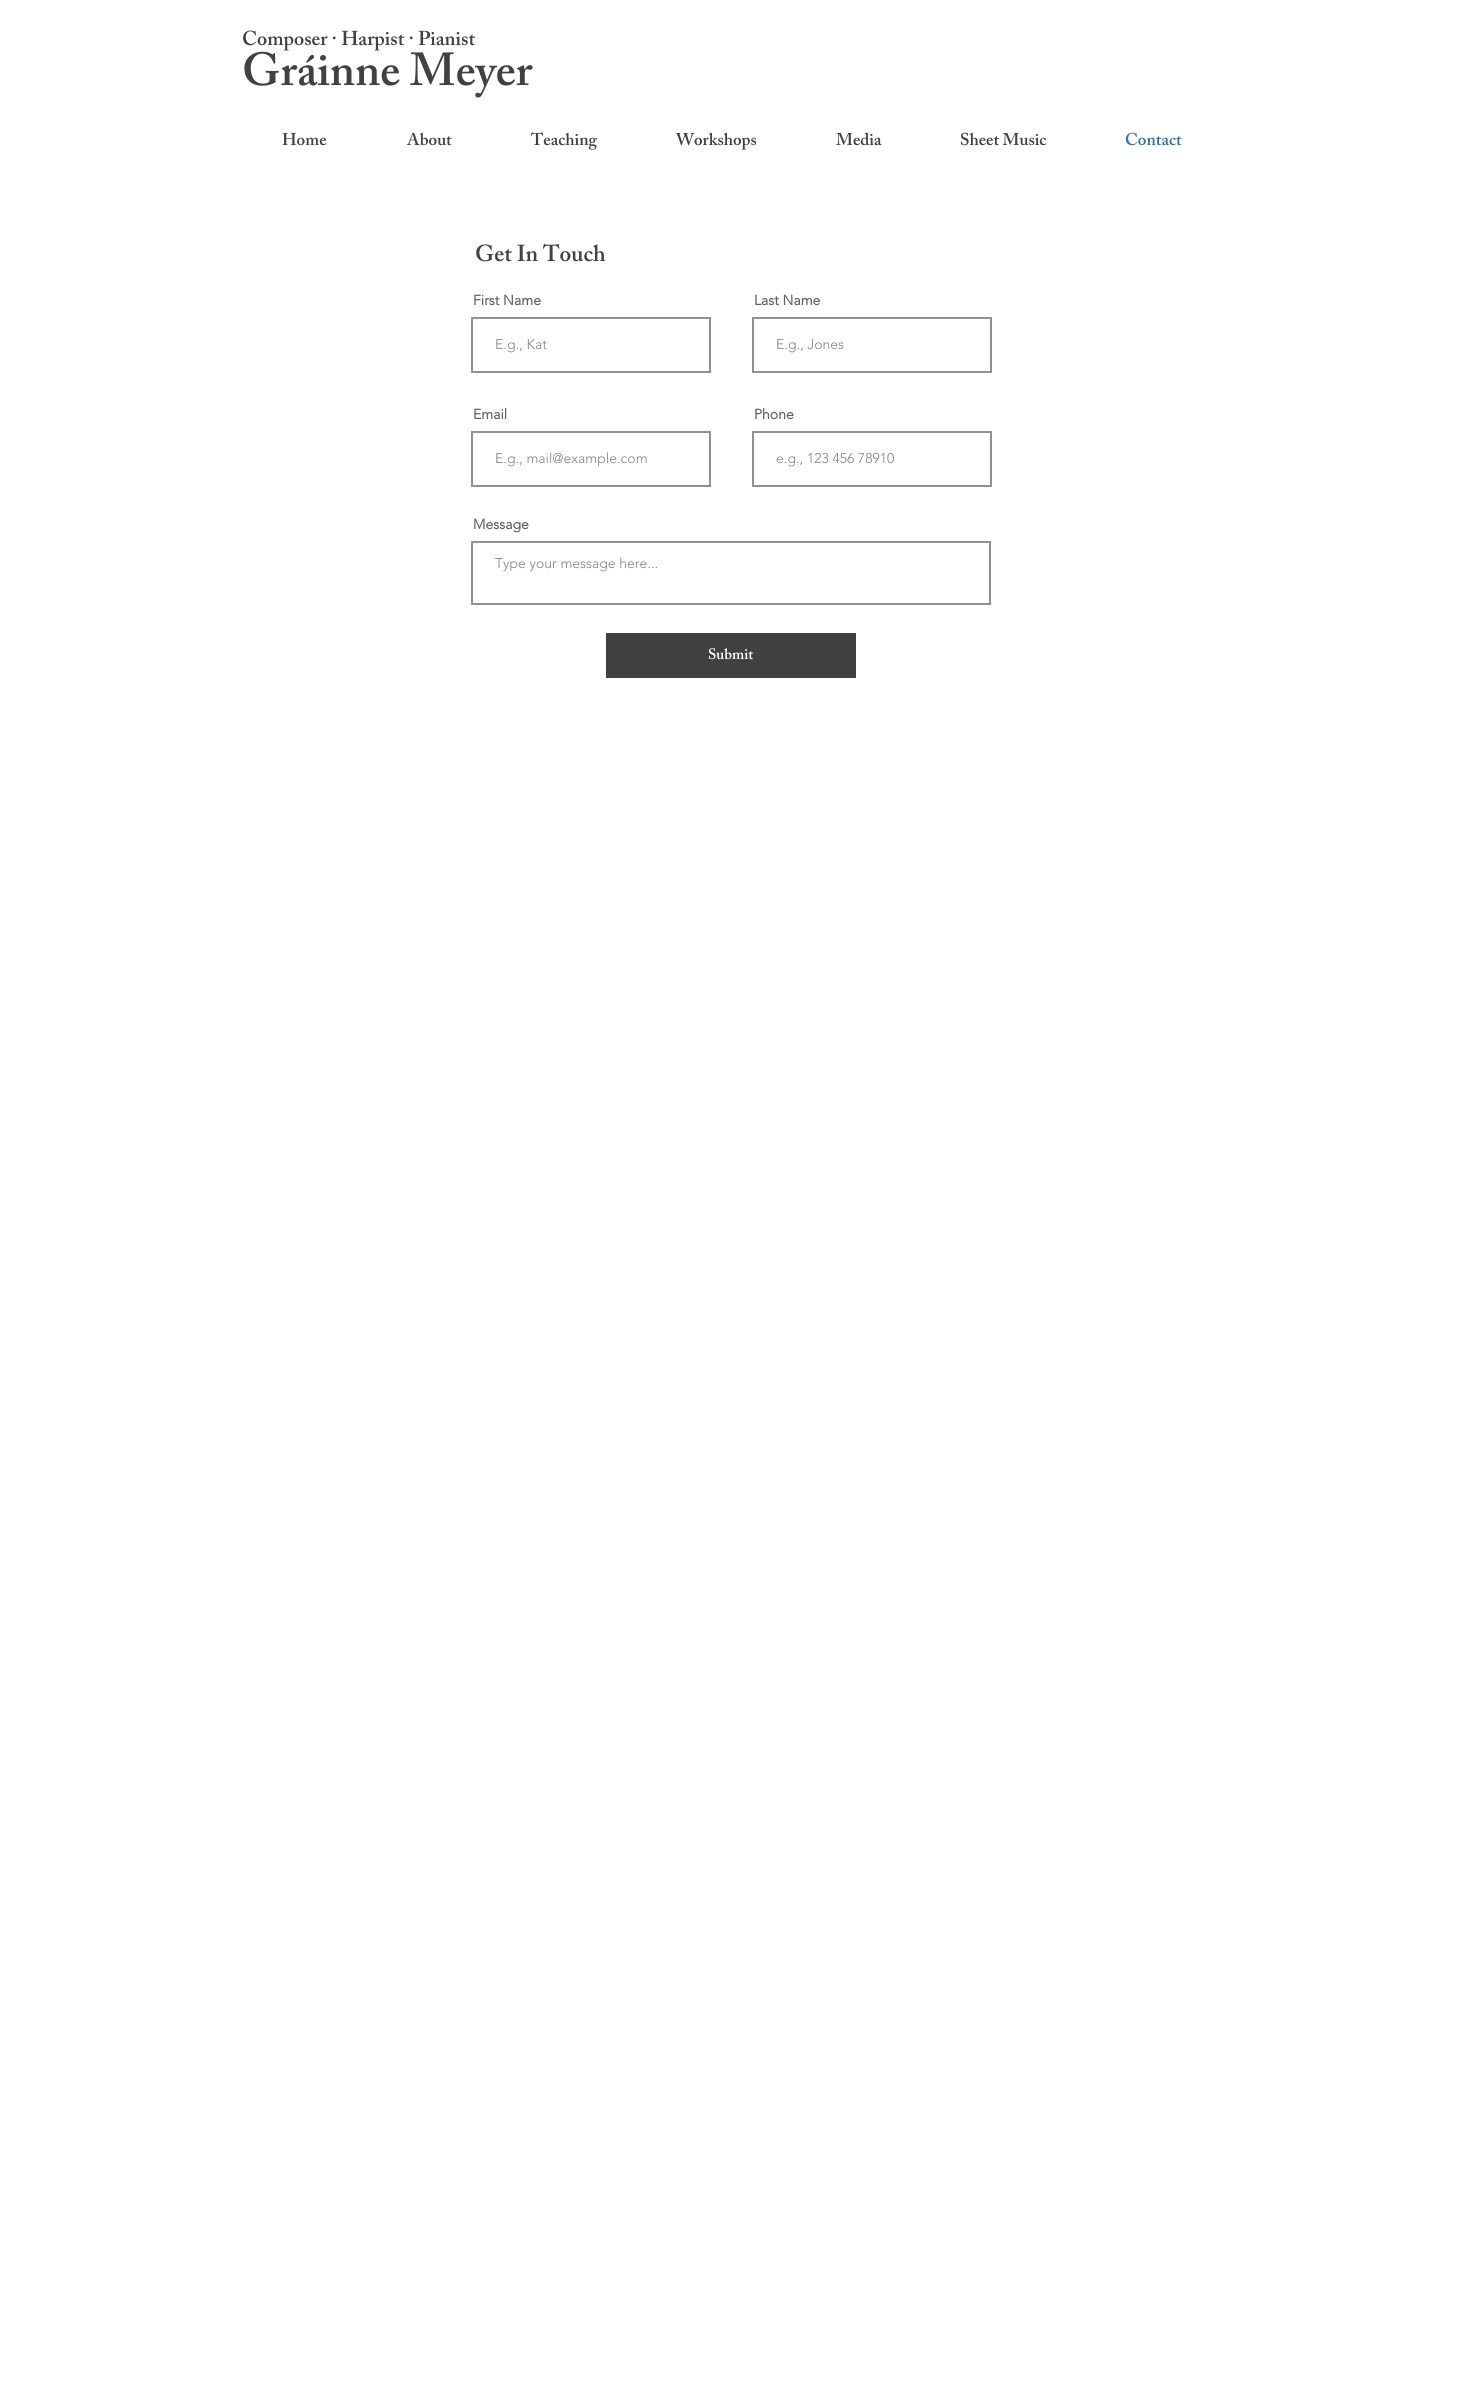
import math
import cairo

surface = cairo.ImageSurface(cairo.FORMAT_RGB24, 1463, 2383)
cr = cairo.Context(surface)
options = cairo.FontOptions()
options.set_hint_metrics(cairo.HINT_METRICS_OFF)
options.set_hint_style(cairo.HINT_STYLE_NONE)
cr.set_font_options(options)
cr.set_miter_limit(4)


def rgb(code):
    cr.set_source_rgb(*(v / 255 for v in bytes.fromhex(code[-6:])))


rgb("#ffffff")
cr.paint()
cr.rectangle(472, 318, 238, 54)
rgb("#919191")
cr.stroke()
cr.rectangle(753, 318, 238, 54)
cr.stroke()
cr.rectangle(472, 432, 238, 54)
cr.stroke()
cr.rectangle(753, 432, 238, 54)
cr.stroke()
cr.rectangle(472, 542, 518, 62)
cr.stroke()
rgb("#414141")
cr.rectangle(606, 633, 250, 45)
cr.fill()
cr.select_font_face("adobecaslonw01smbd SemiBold")
cr.set_font_size(20)
cr.move_to(242, 45)
cr.show_text("Composer · Harpist · Pianist")
cr.set_font_size(46)
cr.move_to(242, 85)
cr.show_text("Gráinne Meyer")
cr.set_font_size(17)
for x, y, s in [
    (282, 145, "Home"),
    (407, 145, "About"),
    (531, 145, "Teaching"),
    (676, 145, "Workshops"),
    (836, 145, "Media"),
    (960, 145, "Sheet Music"),
]:
    cr.move_to(x, y)
    cr.show_text(s)
rgb("#3071a6")
cr.move_to(1125, 145)
cr.show_text("Contact")
cr.set_font_size(23)
rgb("#414141")
cr.move_to(475, 261)
cr.show_text("Get In Touch")
cr.select_font_face("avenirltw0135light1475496", cairo.FONT_SLANT_NORMAL, cairo.FONT_WEIGHT_BOLD)
cr.set_font_size(14)
rgb("#61615f")
cr.move_to(473, 305)
cr.show_text("First Name")
cr.select_font_face("avenirltw0135light1475496 Light")
rgb("#7f808a")
cr.move_to(495, 349)
cr.show_text("E.g., Kat")
cr.select_font_face("avenirltw0135light1475496", cairo.FONT_SLANT_NORMAL, cairo.FONT_WEIGHT_BOLD)
rgb("#61615f")
cr.move_to(754, 305)
cr.show_text("Last Name")
cr.select_font_face("avenirltw0135light1475496 Light")
rgb("#7f808a")
cr.move_to(776, 349)
cr.show_text("E.g., Jones")
cr.select_font_face("avenirltw0135light1475496", cairo.FONT_SLANT_NORMAL, cairo.FONT_WEIGHT_BOLD)
rgb("#61615f")
cr.move_to(473, 419)
cr.show_text("Email")
cr.select_font_face("avenirltw0135light1475496 Light")
rgb("#7f808a")
cr.move_to(495, 463)
cr.show_text("E.g., mail@example.com")
cr.select_font_face("avenirltw0135light1475496", cairo.FONT_SLANT_NORMAL, cairo.FONT_WEIGHT_BOLD)
rgb("#61615f")
cr.move_to(754, 419)
cr.show_text("Phone")
cr.select_font_face("avenirltw0135light1475496 Light")
rgb("#7f808a")
cr.move_to(776, 463)
cr.show_text("e.g., 123 456 78910")
cr.select_font_face("avenirltw0135light1475496", cairo.FONT_SLANT_NORMAL, cairo.FONT_WEIGHT_BOLD)
rgb("#61615f")
cr.move_to(473, 529)
cr.show_text("Message")
cr.select_font_face("avenirltw0135light1475496 Light")
rgb("#7f808a")
cr.move_to(495, 568)
cr.show_text("Type your message here...")
cr.select_font_face("adobecaslonw01smbd SemiBold")
cr.set_font_size(15)
rgb("#ffffff")
cr.move_to(708, 659)
cr.show_text("Submit")
surface.write_to_png("page.png")
